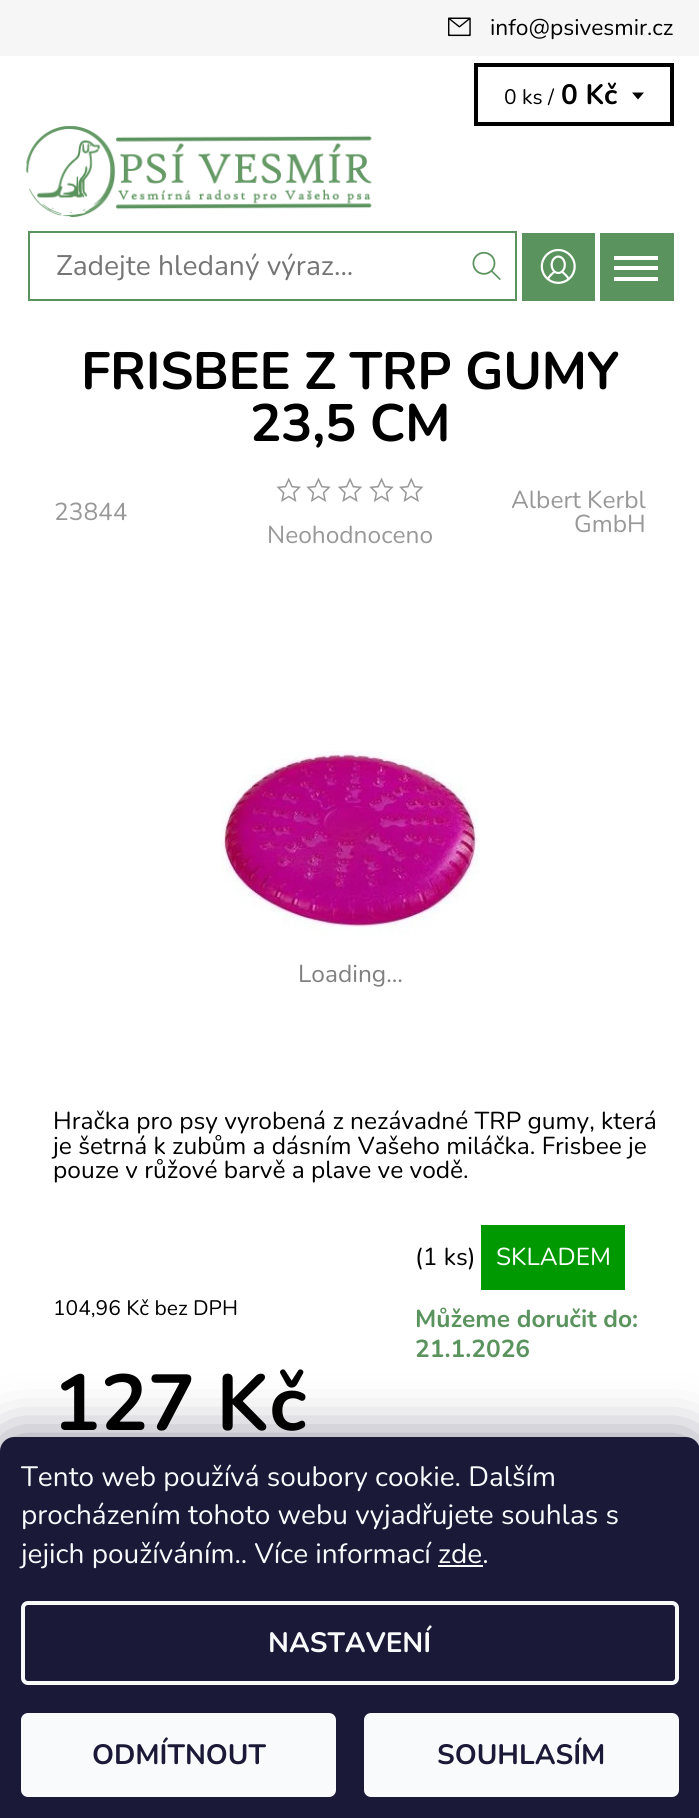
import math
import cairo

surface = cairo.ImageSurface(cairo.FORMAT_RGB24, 699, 1818)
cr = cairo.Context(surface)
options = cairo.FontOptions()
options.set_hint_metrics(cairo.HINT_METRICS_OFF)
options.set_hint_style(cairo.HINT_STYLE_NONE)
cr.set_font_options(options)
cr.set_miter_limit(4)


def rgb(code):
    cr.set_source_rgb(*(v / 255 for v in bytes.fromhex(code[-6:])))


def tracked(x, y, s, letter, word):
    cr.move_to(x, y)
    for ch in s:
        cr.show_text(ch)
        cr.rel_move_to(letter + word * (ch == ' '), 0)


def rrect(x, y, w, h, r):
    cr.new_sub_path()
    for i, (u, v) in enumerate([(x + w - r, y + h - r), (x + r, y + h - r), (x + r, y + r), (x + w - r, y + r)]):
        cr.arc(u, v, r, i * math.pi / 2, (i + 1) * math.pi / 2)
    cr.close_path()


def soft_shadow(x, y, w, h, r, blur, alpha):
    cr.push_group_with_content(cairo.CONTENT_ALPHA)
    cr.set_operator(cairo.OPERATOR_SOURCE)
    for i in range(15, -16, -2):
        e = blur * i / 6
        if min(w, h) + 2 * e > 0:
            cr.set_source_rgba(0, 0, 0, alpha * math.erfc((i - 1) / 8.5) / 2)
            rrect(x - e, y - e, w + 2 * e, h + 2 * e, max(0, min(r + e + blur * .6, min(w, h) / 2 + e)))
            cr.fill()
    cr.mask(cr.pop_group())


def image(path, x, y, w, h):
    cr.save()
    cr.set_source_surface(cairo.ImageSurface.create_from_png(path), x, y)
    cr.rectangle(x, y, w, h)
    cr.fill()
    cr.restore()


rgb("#ffffff")
cr.paint()
rgb("#f6f6f6")
cr.rectangle(0, 0, 699, 56)
cr.fill()
image("img/1.png", 448, 17, 23, 20)
cr.rectangle(476, 65, 196, 59)
rgb("#000000")
cr.set_line_width(4)
cr.stroke()
cr.new_path()
cr.move_to(638, 92.5)
cr.line_to(644, 92.5)
cr.line_to(638, 99.5)
cr.line_to(632, 92.5)
cr.close_path()
cr.fill()
for x, y, w, h, color in [
    (28, 231, 488, 2, "#5a935d"),
    (28, 299, 431, 2, "#5a935d"),
    (28, 231, 2, 70, "#5a935d"),
    (515, 231, 2, 70, "#5a935d"),
    (459, 299, 57, 2, "#5a935d"),
]:
    rgb(color)
    cr.rectangle(x, y, w, h)
    cr.fill()
image("img/2.png", 472, 251, 29, 29)
image("img/3.png", 26, 126, 346, 91)
cr.rectangle(522, 233, 73, 68)
cr.fill()
image("img/4.png", 540, 248, 36, 36)
for x, y, w, h, color in [
    (600, 233, 74, 68, "#5a935d"),
    (614, 256, 44, 4, "#ffffff"),
    (614, 266, 44, 4, "#ffffff"),
    (614, 277, 44, 4, "#ffffff"),
]:
    rgb(color)
    cr.rectangle(x, y, w, h)
    cr.fill()
image("img/5.png", 276, 477, 25, 25)
image("img/6.png", 306, 477, 25, 25)
image("img/7.png", 338, 477, 24, 25)
image("img/6.png", 369, 477, 25, 25)
image("img/8.png", 399, 477, 25, 25)
image("img/9.png", 221, 751, 259, 184)
rgb("#009901")
cr.rectangle(481, 1225, 144, 65)
cr.fill()
rgb("#1b1939")
soft_shadow(0, 1437, 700, 381, 14, 26, 0.5)
rgb("#1a1937")
cr.new_path()
cr.move_to(14, 1437)
cr.line_to(686, 1437)
cr.curve_to(693.5, 1437, 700, 1443.5, 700, 1451)
cr.line_to(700, 1818)
cr.line_to(0, 1818)
cr.line_to(0, 1451)
cr.curve_to(0, 1443.5, 6.5, 1437, 14, 1437)
cr.close_path()
cr.fill()
rgb("#f8fafb")
cr.rectangle(438, 1565, 45, 2)
cr.fill()
rrect(23, 1603, 654, 80, 5)
cr.stroke()
rrect(21, 1713, 315, 84, 7)
cr.fill()
rrect(364, 1713, 315, 84, 7)
cr.fill()
cr.select_font_face("Nunito")
cr.set_font_size(22.75)
rgb("#000000")
cr.move_to(490, 35)
cr.show_text("info@psivesmir.cz")
cr.set_font_size(21)
cr.move_to(504, 104)
cr.show_text("0 ks /")
cr.select_font_face("Nunito", cairo.FONT_SLANT_NORMAL, cairo.FONT_WEIGHT_BOLD)
cr.set_font_size(28)
cr.move_to(561, 104)
cr.show_text("0 Kč")
cr.select_font_face("Nunito")
cr.set_font_size(28.25)
rgb("#757575")
cr.move_to(56, 275)
cr.show_text("Zadejte hledaný výraz...")
cr.select_font_face("Nunito", cairo.FONT_SLANT_NORMAL, cairo.FONT_WEIGHT_BOLD)
cr.set_font_size(52.5)
rgb("#000000")
tracked(81, 389, "FRISBEE Z TRP GUMY", -0.4, 0)
tracked(250, 441, "23,5 CM", -0.4, 0)
cr.select_font_face("Nunito")
cr.set_font_size(24.5)
rgb("#989898")
for x, y, s in [
    (54, 520, "23844"),
    (511, 508, "Albert Kerbl"),
    (574, 532, "GmbH"),
    (267, 543, "Neohodnoceno"),
]:
    cr.move_to(x, y)
    cr.show_text(s)
rgb("#808080")
cr.move_to(298, 982)
cr.show_text("Loading...")
rgb("#000000")
for x, y, s in [
    (53, 1129, "Hračka pro psy vyrobená z nezávadné TRP gumy, která"),
    (53, 1154, "je šetrná k zubům a dásním Vašeho miláčka. Frisbee je"),
    (53, 1178, "pouze v růžové barvě a plave ve vodě."),
]:
    cr.move_to(x, y)
    cr.show_text(s)
cr.set_font_size(21)
cr.move_to(53, 1315)
cr.show_text("104,96 Kč bez DPH")
cr.set_font_size(24.5)
cr.move_to(415, 1265)
cr.show_text("(1 ks)")
rgb("#ffffff")
cr.move_to(496, 1265)
cr.show_text("SKLADEM")
cr.select_font_face("Nunito", cairo.FONT_SLANT_NORMAL, cairo.FONT_WEIGHT_BOLD)
rgb("#5a935d")
cr.move_to(415, 1327)
cr.show_text("Můžeme doručit do:")
cr.move_to(415, 1357)
cr.show_text("21.1.2026")
cr.set_font_size(79)
rgb("#000000")
cr.move_to(53, 1430)
cr.show_text("127 Kč")
cr.select_font_face("Nunito")
cr.set_font_size(28)
rgb("#f8fafb")
for x, y, s in [
    (21, 1486, "Tento web používá soubory cookie. Dalším"),
    (21, 1524, "procházením tohoto webu vyjadřujete souhlas s"),
    (21, 1563, "jejich používáním.. Více informací zde."),
]:
    cr.move_to(x, y)
    cr.show_text(s)
cr.select_font_face("Nunito", cairo.FONT_SLANT_NORMAL, cairo.FONT_WEIGHT_BOLD)
cr.move_to(268, 1652)
cr.show_text("NASTAVENÍ")
rgb("#1a1937")
cr.move_to(92, 1764)
cr.show_text("ODMÍTNOUT")
cr.move_to(437, 1764)
cr.show_text("SOUHLASÍM")
surface.write_to_png("page.png")
